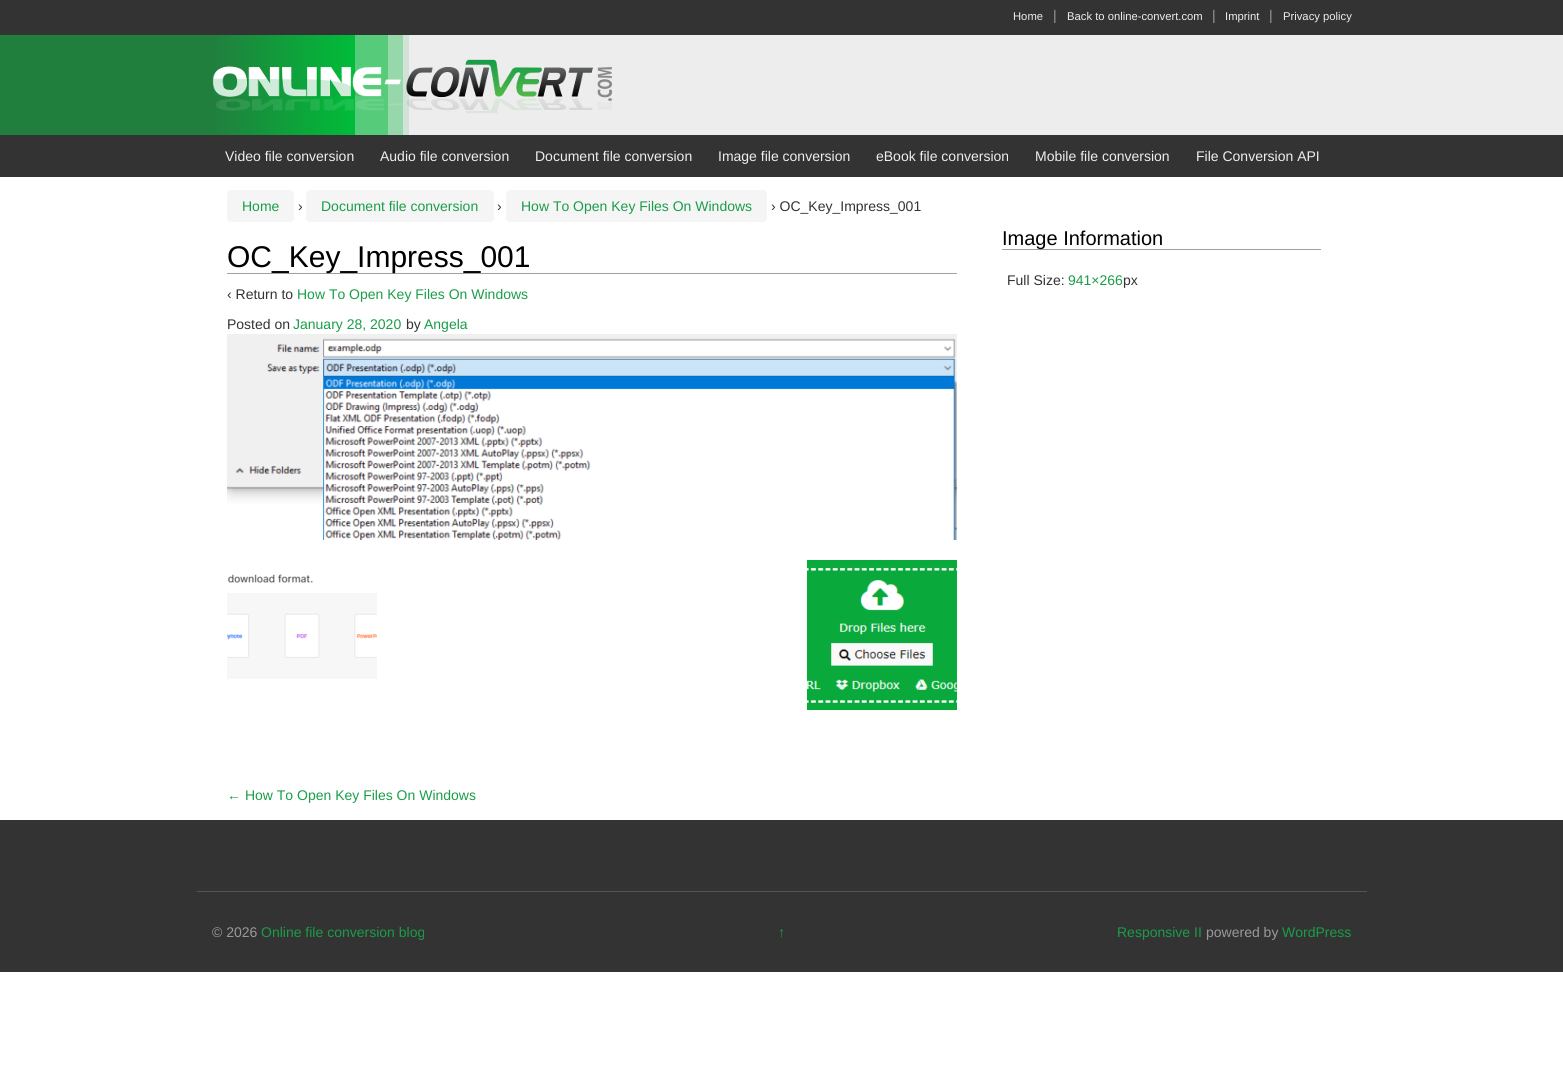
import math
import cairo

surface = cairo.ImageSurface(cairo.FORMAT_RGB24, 1563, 1087)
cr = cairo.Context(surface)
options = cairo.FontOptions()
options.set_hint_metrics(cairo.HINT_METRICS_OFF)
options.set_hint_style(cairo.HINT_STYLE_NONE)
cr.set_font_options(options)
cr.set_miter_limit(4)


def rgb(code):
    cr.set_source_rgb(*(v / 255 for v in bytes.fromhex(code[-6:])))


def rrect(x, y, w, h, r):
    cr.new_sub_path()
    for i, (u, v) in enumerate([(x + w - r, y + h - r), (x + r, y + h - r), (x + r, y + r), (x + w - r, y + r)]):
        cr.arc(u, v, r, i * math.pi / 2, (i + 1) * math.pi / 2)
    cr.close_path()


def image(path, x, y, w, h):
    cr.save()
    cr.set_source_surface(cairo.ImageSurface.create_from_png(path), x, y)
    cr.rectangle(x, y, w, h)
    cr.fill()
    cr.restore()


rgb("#ffffff")
cr.paint()
image("img/1.png", 0, 35, 1563, 100)
rgb("#333333")
cr.rectangle(0, 0, 1563, 35)
cr.fill()
image("img/2.png", 212, 35, 459, 100)
cr.rectangle(0, 135, 1563, 42)
cr.fill()
rgb("#f5f5f5")
rrect(227, 190, 67, 32, 4)
cr.fill()
rrect(306, 190, 188, 32, 4)
cr.fill()
rrect(506, 190, 261, 32, 4)
cr.fill()
rgb("#9ea0a3")
cr.rectangle(227, 273, 730, 1)
cr.fill()
image("img/3.png", 227, 334, 730, 206)
image("img/4.png", 227, 574, 150, 105)
image("img/5.png", 807, 560, 150, 150)
for x, y, w, h, color in [
    (1002, 249, 319, 1, "#9ea0a3"),
    (0, 820, 1563, 152, "#333333"),
    (197, 891, 1170, 1, "#555555"),
]:
    rgb(color)
    cr.rectangle(x, y, w, h)
    cr.fill()
cr.select_font_face("Liberation Sans")
cr.set_font_size(11.25)
rgb("#eeeeee")
cr.move_to(1013, 20)
cr.show_text("Home")
cr.set_font_size(14)
rgb("#999999")
cr.move_to(1053, 20)
cr.show_text("|")
cr.set_font_size(11.25)
rgb("#eeeeee")
cr.move_to(1067, 20)
cr.show_text("Back to online-convert.com")
cr.set_font_size(14)
rgb("#999999")
cr.move_to(1212, 20)
cr.show_text("|")
cr.set_font_size(11.25)
rgb("#eeeeee")
cr.move_to(1225, 20)
cr.show_text("Imprint")
cr.set_font_size(14)
rgb("#999999")
cr.move_to(1269, 20)
cr.show_text("|")
cr.set_font_size(11.25)
rgb("#eeeeee")
cr.move_to(1283, 20)
cr.show_text("Privacy policy")
cr.set_font_size(14)
for x, y, s in [
    (225, 161, "Video file conversion"),
    (380, 161, "Audio file conversion"),
    (535, 161, "Document file conversion"),
    (718, 161, "Image file conversion"),
    (876, 161, "eBook file conversion"),
    (1035, 161, "Mobile file conversion"),
    (1196, 161, "File Conversion API"),
]:
    cr.move_to(x, y)
    cr.show_text(s)
rgb("#1a9d48")
cr.move_to(242, 211)
cr.show_text("Home")
rgb("#333333")
cr.move_to(298, 211)
cr.show_text("›")
rgb("#1a9d48")
cr.move_to(321, 211)
cr.show_text("Document file conversion")
rgb("#333333")
cr.move_to(497, 211)
cr.show_text("›")
rgb("#1a9d48")
cr.move_to(521, 211)
cr.show_text("How To Open Key Files On Windows")
rgb("#333333")
cr.move_to(771, 211)
cr.show_text("› OC_Key_Impress_001")
cr.set_font_size(30)
rgb("#000000")
cr.move_to(227, 267)
cr.show_text("OC_Key_Impress_001")
cr.set_font_size(14)
rgb("#333333")
cr.move_to(227, 299)
cr.show_text("‹ Return to")
rgb("#1a9d48")
cr.move_to(297, 299)
cr.show_text("How To Open Key Files On Windows")
rgb("#333333")
cr.move_to(227, 329)
cr.show_text("Posted on")
rgb("#1a9d48")
cr.move_to(293, 329)
cr.show_text("January 28, 2020")
rgb("#333333")
cr.move_to(406, 329)
cr.show_text("by")
rgb("#1a9d48")
cr.move_to(424, 329)
cr.show_text("Angela")
cr.move_to(227, 800)
cr.show_text("← How To Open Key Files On Windows")
cr.set_font_size(20)
rgb("#000000")
cr.move_to(1002, 245)
cr.show_text("Image Information")
cr.set_font_size(14)
rgb("#333333")
cr.move_to(1007, 285)
cr.show_text("Full Size:")
rgb("#1a9d48")
cr.move_to(1068, 285)
cr.show_text("941×266")
rgb("#333333")
cr.move_to(1123, 285)
cr.show_text("px")
rgb("#999999")
cr.move_to(212, 937)
cr.show_text("© 2026")
rgb("#1a9d48")
for x, y, s in [
    (261, 937, "Online file conversion blog"),
    (778, 937, "↑"),
    (1117, 937, "Responsive II"),
]:
    cr.move_to(x, y)
    cr.show_text(s)
rgb("#999999")
cr.move_to(1206, 937)
cr.show_text("powered by")
rgb("#1a9d48")
cr.move_to(1282, 937)
cr.show_text("WordPress")
surface.write_to_png("page.png")
